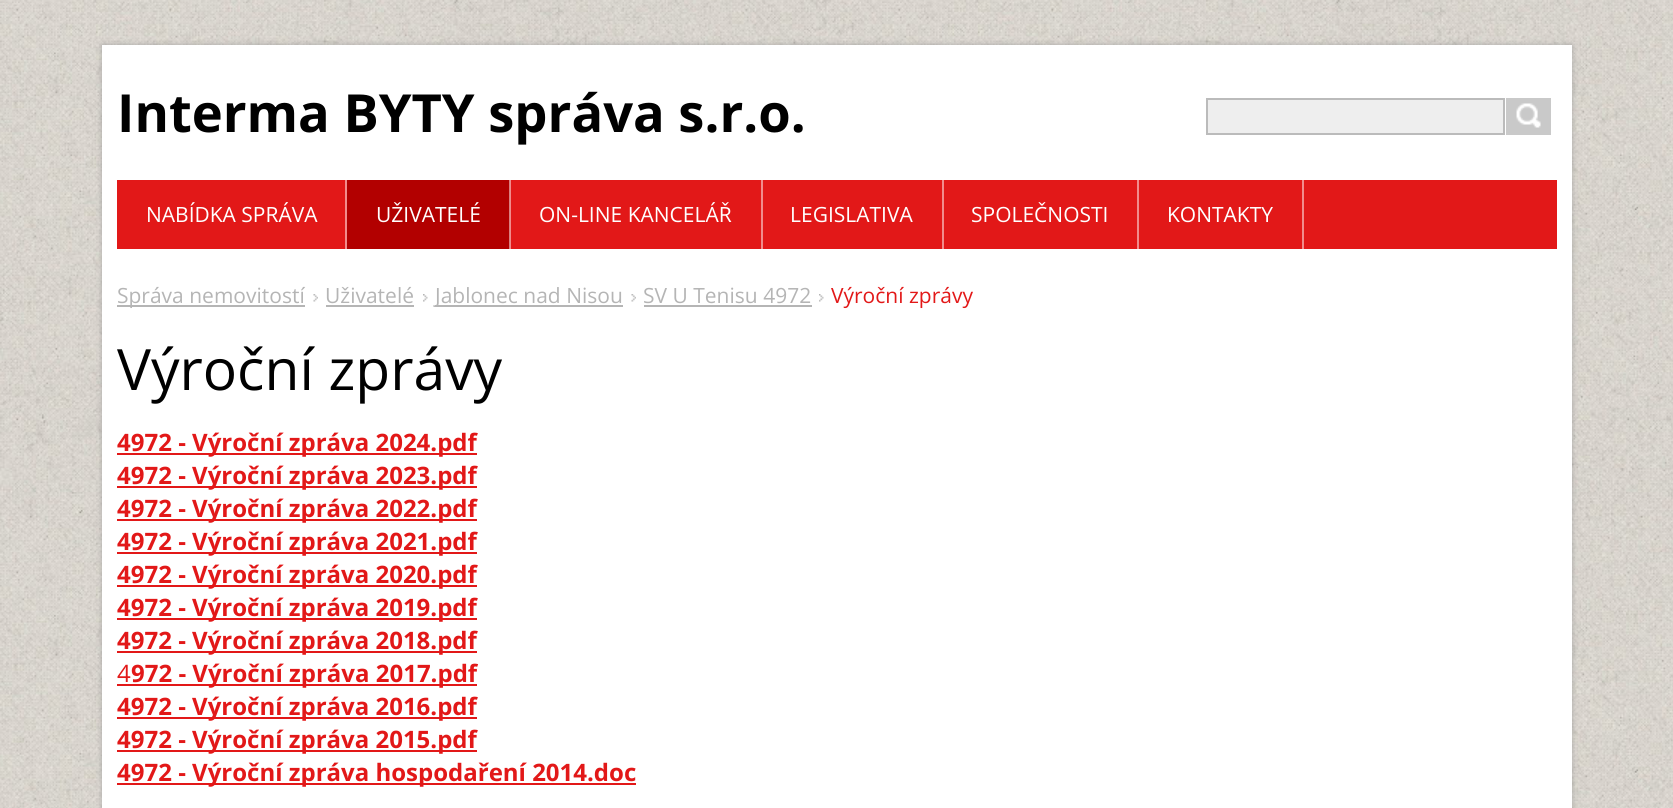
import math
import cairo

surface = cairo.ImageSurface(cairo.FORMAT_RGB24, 1673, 808)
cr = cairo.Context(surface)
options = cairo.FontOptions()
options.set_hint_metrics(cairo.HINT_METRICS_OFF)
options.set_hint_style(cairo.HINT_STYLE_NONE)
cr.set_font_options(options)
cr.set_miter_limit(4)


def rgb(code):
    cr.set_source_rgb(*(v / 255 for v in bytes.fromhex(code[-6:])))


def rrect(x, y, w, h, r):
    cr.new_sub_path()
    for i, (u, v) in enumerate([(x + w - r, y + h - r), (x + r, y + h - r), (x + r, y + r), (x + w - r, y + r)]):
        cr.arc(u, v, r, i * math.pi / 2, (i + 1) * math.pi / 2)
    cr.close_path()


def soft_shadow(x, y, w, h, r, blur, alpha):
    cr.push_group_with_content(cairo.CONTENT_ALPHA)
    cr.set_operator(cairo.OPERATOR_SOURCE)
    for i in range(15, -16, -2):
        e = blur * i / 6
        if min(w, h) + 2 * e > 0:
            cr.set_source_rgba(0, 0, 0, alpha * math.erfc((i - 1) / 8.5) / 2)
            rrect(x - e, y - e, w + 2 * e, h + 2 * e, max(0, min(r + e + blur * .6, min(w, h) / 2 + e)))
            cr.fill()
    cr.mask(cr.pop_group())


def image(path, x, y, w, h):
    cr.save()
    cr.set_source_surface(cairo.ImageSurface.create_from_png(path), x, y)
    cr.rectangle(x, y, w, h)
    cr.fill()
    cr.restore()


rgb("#ffffff")
cr.paint()
image("img/1.png", 0, 0, 1673, 808)
rgb("#989898")
soft_shadow(102, 45, 1470, 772, 0, 3, 0.75)
rgb("#ffffff")
cr.rectangle(102, 45, 1470, 763)
cr.fill()
rgb("#eeeeee")
cr.rectangle(1207, 99, 297, 35)
cr.fill_preserve()
rgb("#bbbbbb")
cr.stroke()
rgb("#c9c9c9")
cr.rectangle(1506, 98, 45, 37)
cr.fill()
image("img/2.png", 1516, 103, 25, 25)
rgb("#e21818")
cr.rectangle(117, 180, 1440, 69)
cr.fill()
rgb("#f18c8c")
cr.rectangle(345, 180, 2, 69)
cr.fill()
rgb("#b20000")
cr.rectangle(347, 180, 163, 69)
cr.fill()
cr.set_source_rgba(1, 1, 1, 0.5)
cr.rectangle(509, 180, 2, 69)
cr.fill()
rgb("#f18c8c")
cr.rectangle(761, 180, 2, 69)
cr.rectangle(942, 180, 2, 69)
cr.rectangle(1137, 180, 2, 69)
cr.rectangle(1302, 180, 2, 69)
cr.fill()
rgb("#b5b5b5")
cr.rectangle(117, 305, 188, 2)
cr.fill()
image("img/3.png", 313, 294, 5, 8)
cr.rectangle(326, 305, 88, 2)
cr.fill()
image("img/4.png", 423, 294, 5, 8)
cr.rectangle(435, 305, 188, 2)
cr.fill()
image("img/5.png", 631, 294, 5, 8)
cr.rectangle(644, 305, 168, 2)
cr.fill()
image("img/6.png", 819, 294, 5, 8)
for x, y, w, h, color in [
    (117, 453, 360, 2, "#e21818"),
    (117, 486, 360, 2, "#e21818"),
    (117, 519, 360, 2, "#e21818"),
    (117, 552, 360, 2, "#e21818"),
    (117, 585, 360, 2, "#e21818"),
    (117, 618, 360, 2, "#e21818"),
    (117, 651, 360, 2, "#e21818"),
    (117, 684, 360, 2, "#e21818"),
    (117, 717, 360, 2, "#e21818"),
    (117, 750, 360, 2, "#e21818"),
    (117, 783, 519, 2, "#e21818"),
]:
    rgb(color)
    cr.rectangle(x, y, w, h)
    cr.fill()
cr.select_font_face("Open Sans", cairo.FONT_SLANT_NORMAL, cairo.FONT_WEIGHT_BOLD)
cr.set_font_size(52.5)
rgb("#000000")
cr.move_to(117, 132)
cr.show_text("Interma BYTY správa s.r.o.")
cr.select_font_face("Open Sans")
cr.set_font_size(21)
rgb("#ffffff")
for x, y, s in [
    (146, 222, "NABÍDKA SPRÁVA"),
    (376, 222, "UŽIVATELÉ"),
    (539, 222, "ON-LINE KANCELÁŘ"),
    (790, 222, "LEGISLATIVA"),
    (971, 222, "SPOLEČNOSTI"),
    (1167, 222, "KONTAKTY"),
]:
    cr.move_to(x, y)
    cr.show_text(s)
rgb("#b5b5b5")
for x, y, s in [
    (117, 303, "Správa nemovitostí"),
    (325, 303, "Uživatelé"),
    (435, 303, "Jablonec nad Nisou"),
    (643, 303, "SV U Tenisu 4972"),
]:
    cr.move_to(x, y)
    cr.show_text(s)
rgb("#e21818")
cr.move_to(831, 303)
cr.show_text("Výroční zprávy")
cr.set_font_size(57)
rgb("#000000")
cr.move_to(117, 390)
cr.show_text("Výroční zprávy")
cr.select_font_face("Open Sans", cairo.FONT_SLANT_NORMAL, cairo.FONT_WEIGHT_BOLD)
cr.set_font_size(24)
rgb("#e21818")
for x, y, s in [
    (117, 451, "4972 - Výroční zpráva 2024.pdf"),
    (117, 484, "4972 - Výroční zpráva 2023.pdf"),
    (117, 517, "4972 - Výroční zpráva 2022.pdf"),
    (117, 550, "4972 - Výroční zpráva 2021.pdf"),
    (117, 583, "4972 - Výroční zpráva 2020.pdf"),
    (117, 616, "4972 - Výroční zpráva 2019.pdf"),
    (117, 649, "4972 - Výroční zpráva 2018.pdf"),
]:
    cr.move_to(x, y)
    cr.show_text(s)
cr.select_font_face("Open Sans")
cr.move_to(117, 682)
cr.show_text("4")
cr.select_font_face("Open Sans", cairo.FONT_SLANT_NORMAL, cairo.FONT_WEIGHT_BOLD)
for x, y, s in [
    (131, 682, "972 - Výroční zpráva 2017.pdf"),
    (117, 715, "4972 - Výroční zpráva 2016.pdf"),
    (117, 748, "4972 - Výroční zpráva 2015.pdf"),
    (117, 781, "4972 - Výroční zpráva hospodaření 2014.doc"),
]:
    cr.move_to(x, y)
    cr.show_text(s)
surface.write_to_png("page.png")
